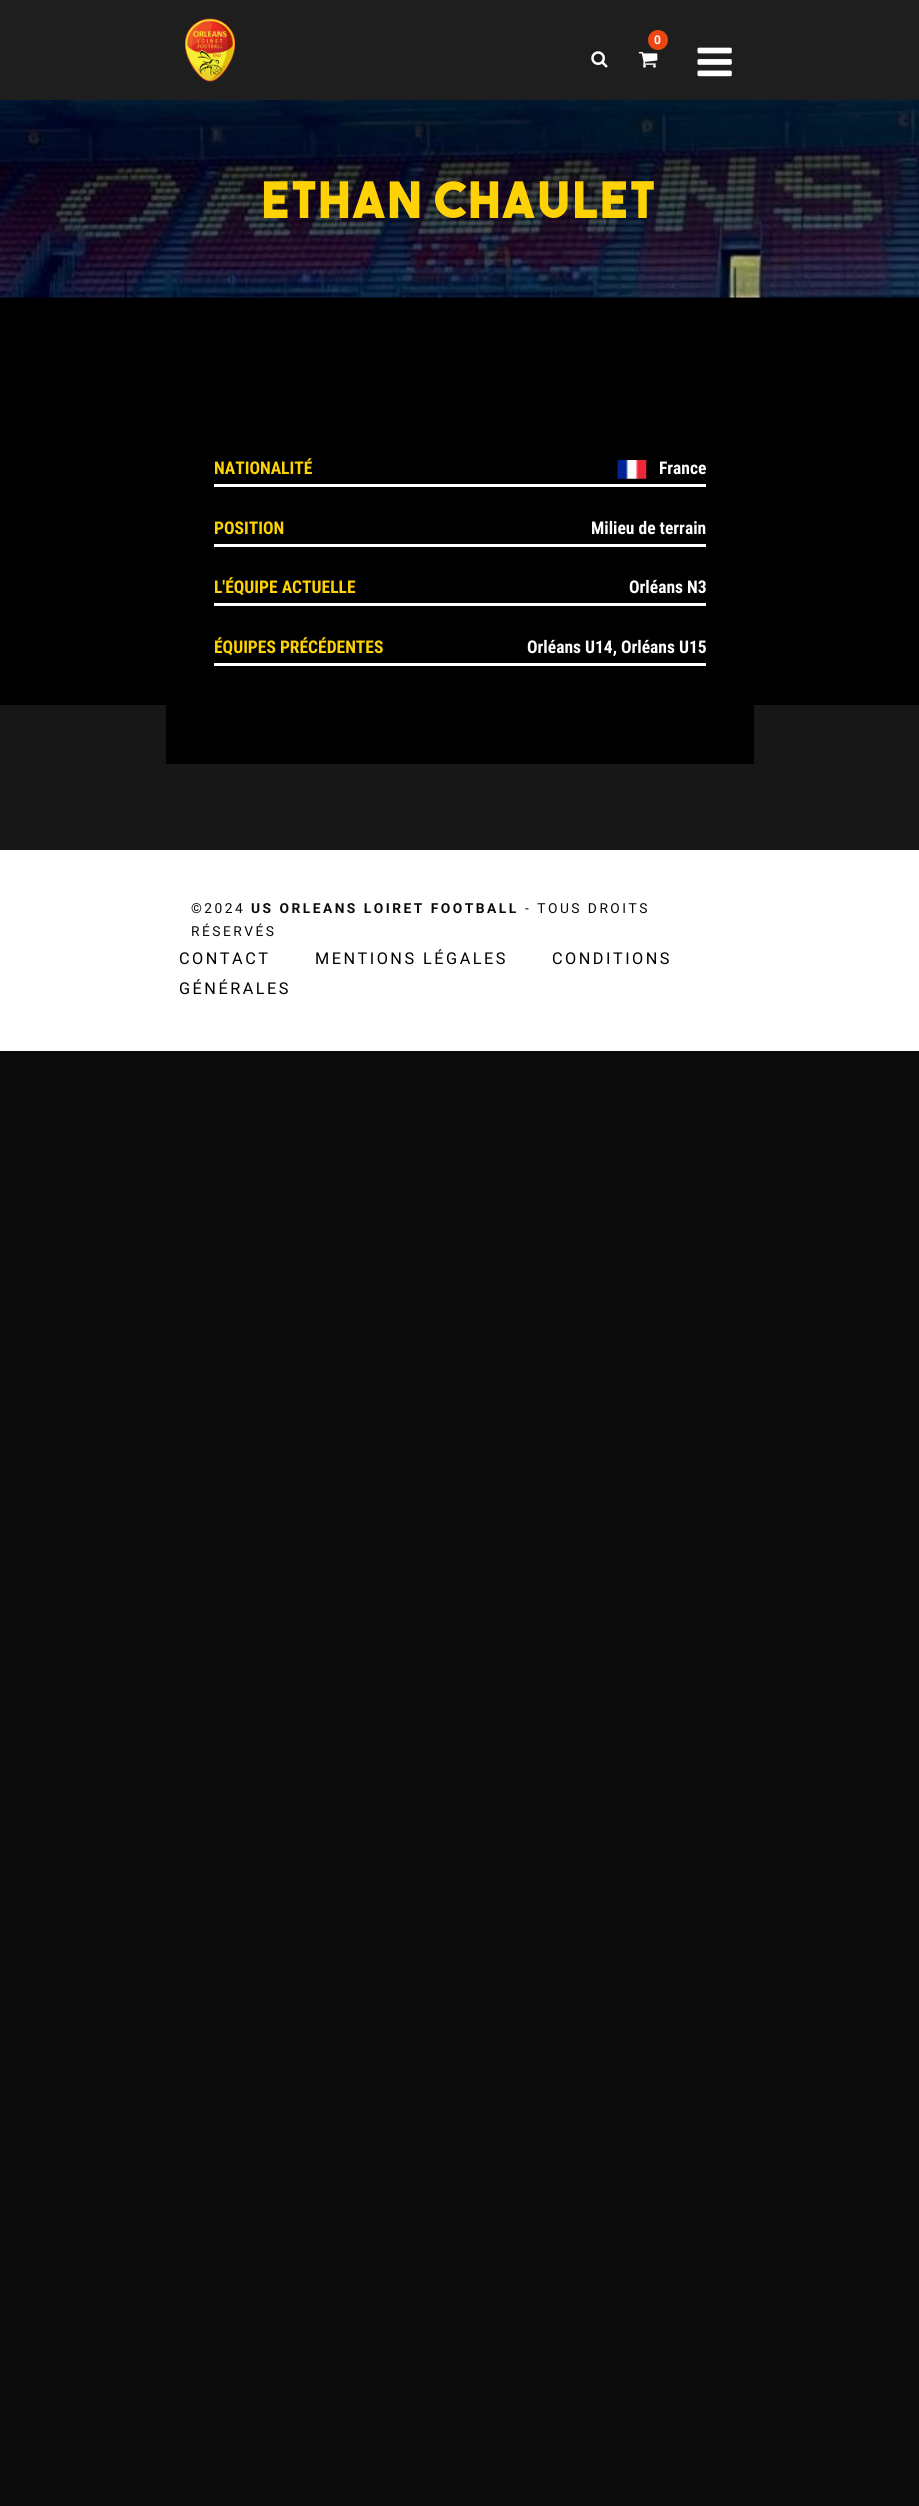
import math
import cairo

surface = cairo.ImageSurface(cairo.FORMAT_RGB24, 919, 2506)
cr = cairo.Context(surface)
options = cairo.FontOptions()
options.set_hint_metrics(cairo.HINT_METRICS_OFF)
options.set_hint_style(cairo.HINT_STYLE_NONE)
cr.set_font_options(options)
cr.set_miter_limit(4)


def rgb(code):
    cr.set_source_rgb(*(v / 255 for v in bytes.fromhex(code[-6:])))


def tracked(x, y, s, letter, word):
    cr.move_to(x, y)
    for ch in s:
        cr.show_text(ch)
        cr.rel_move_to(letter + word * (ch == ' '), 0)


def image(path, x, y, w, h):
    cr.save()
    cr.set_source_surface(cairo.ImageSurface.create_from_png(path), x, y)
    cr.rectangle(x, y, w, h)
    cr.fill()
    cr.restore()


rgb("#0b0b0b")
cr.paint()
rgb("#1e1e1e")
cr.rectangle(0, 0, 919, 100)
cr.fill()
image("img/1.png", 185, 18, 50, 64)
rgb("#ec4613")
cr.arc(658, 40, 10, 0, 2 * math.pi)
cr.fill()
image("img/2.png", 638, 51, 20, 17)
image("img/3.png", 591, 51, 17, 17)
image("img/4.png", 697, 47, 35, 30)
rgb("#000000")
cr.rectangle(0, 297, 919, 408)
cr.fill()
image("img/5.png", 0, 100, 919, 198)
for x, y, w, h, color in [
    (0, 705, 919, 145, "#171717"),
    (166, 705, 588, 59, "#000000"),
    (214, 484, 492, 3, "#ffffff"),
]:
    rgb(color)
    cr.rectangle(x, y, w, h)
    cr.fill()
image("img/6.png", 617, 460, 30, 19)
for x, y, w, h, color in [
    (214, 544, 492, 3, "#ffffff"),
    (214, 603, 492, 3, "#ffffff"),
    (214, 663, 492, 3, "#ffffff"),
    (0, 850, 919, 201, "#ffffff"),
]:
    rgb(color)
    cr.rectangle(x, y, w, h)
    cr.fill()
cr.select_font_face("Roboto", cairo.FONT_SLANT_NORMAL, cairo.FONT_WEIGHT_BOLD)
cr.set_font_size(12)
cr.move_to(654, 44)
cr.show_text("0")
cr.select_font_face("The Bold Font", cairo.FONT_SLANT_NORMAL, cairo.FONT_WEIGHT_BOLD)
cr.set_font_size(50)
rgb("#fed204")
tracked(262, 218, "ETHAN CHAULET", 2.5, 0)
cr.select_font_face("Roboto Condensed", cairo.FONT_SLANT_NORMAL, cairo.FONT_WEIGHT_BOLD)
cr.set_font_size(17.5)
cr.move_to(214, 474)
cr.show_text("NATIONALITÉ")
rgb("#ffffff")
cr.move_to(659, 474)
cr.show_text("France")
rgb("#fed204")
cr.move_to(214, 534)
cr.show_text("POSITION")
rgb("#ffffff")
cr.move_to(591, 534)
cr.show_text("Milieu de terrain")
rgb("#fed204")
cr.move_to(214, 593)
cr.show_text("L'ÉQUIPE ACTUELLE")
rgb("#ffffff")
cr.move_to(629, 593)
cr.show_text("Orléans N3")
rgb("#fed204")
cr.move_to(214, 653)
cr.show_text("ÉQUIPES PRÉCÉDENTES")
rgb("#ffffff")
cr.move_to(527, 653)
cr.show_text("Orléans U14, Orléans U15")
cr.select_font_face("Roboto")
cr.set_font_size(13.75)
rgb("#0a0a0a")
tracked(191, 913, "©2024", 2.5, 0)
cr.select_font_face("Roboto", cairo.FONT_SLANT_NORMAL, cairo.FONT_WEIGHT_BOLD)
tracked(251, 913, "US ORLEANS LOIRET FOOTBALL", 2.5, 0)
cr.select_font_face("Roboto")
tracked(525, 913, "- TOUS DROITS", 2.5, 0)
tracked(191, 936, "RÉSERVÉS", 2.5, 0)
cr.set_font_size(16.25)
rgb("#000000")
for x, y, s in [
    (179, 964, "CONTACT"),
    (315, 964, "MENTIONS LÉGALES"),
    (552, 964, "CONDITIONS"),
    (179, 994, "GÉNÉRALES"),
]:
    tracked(x, y, s, 2.5, 0)
surface.write_to_png("page.png")
